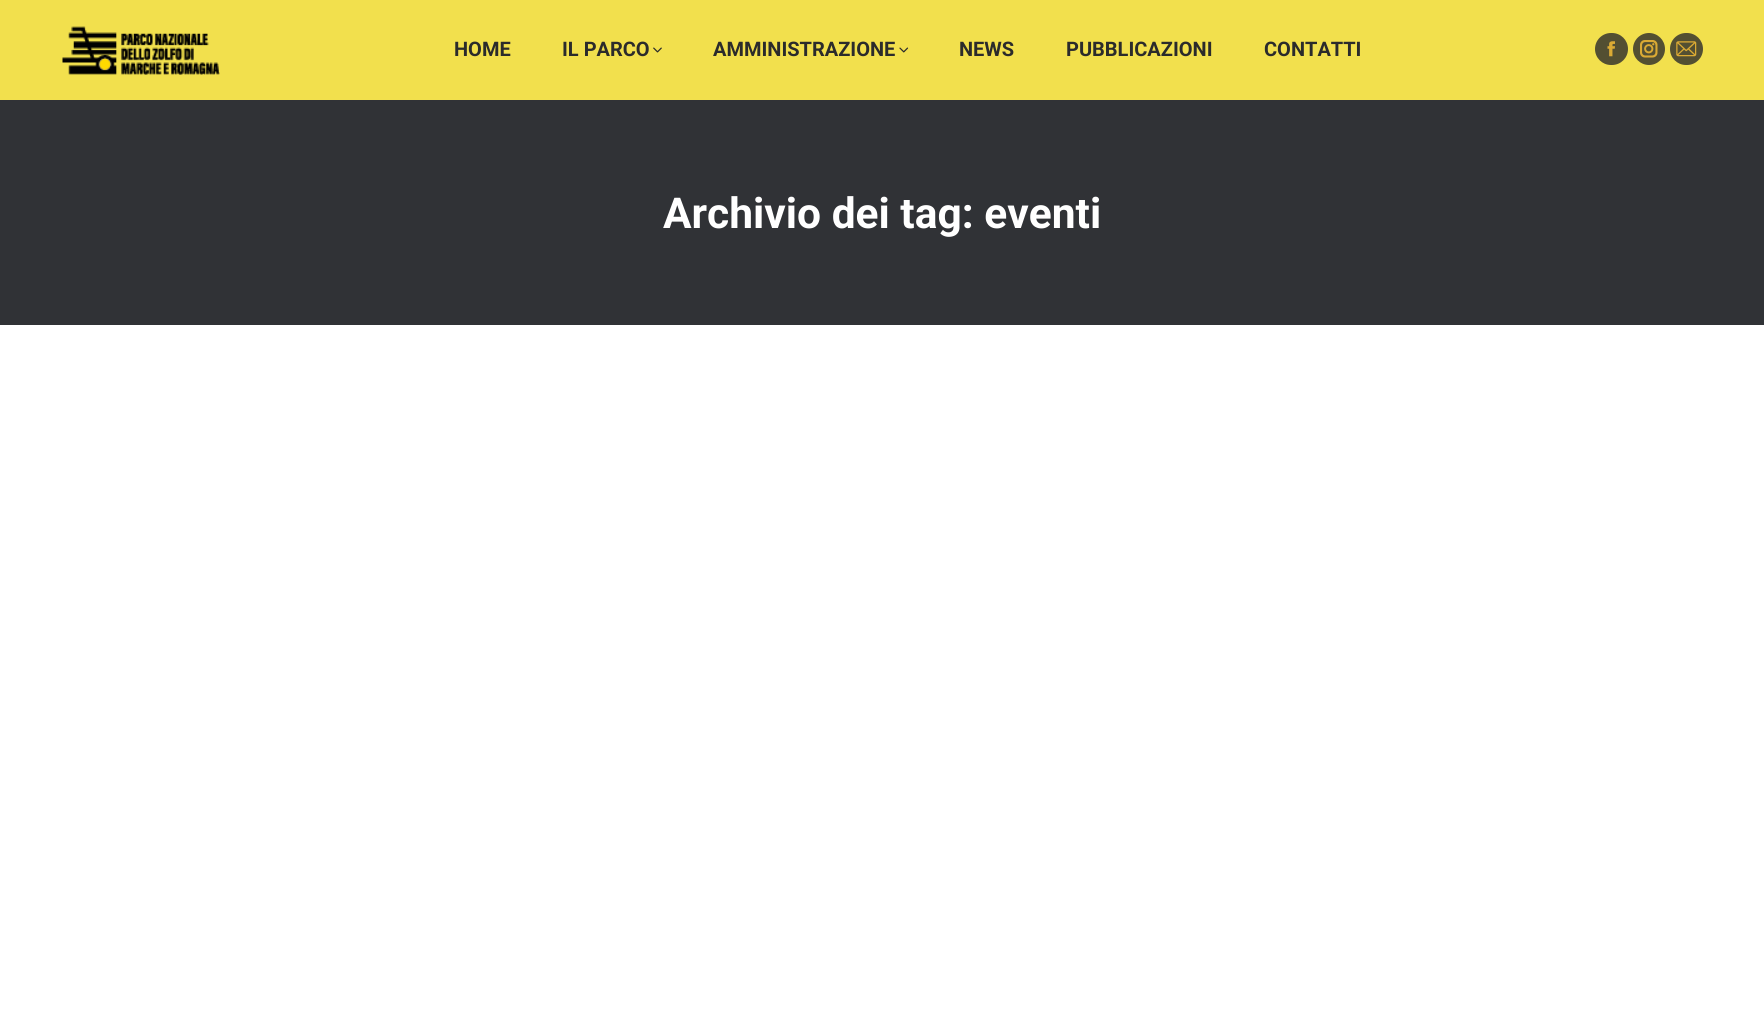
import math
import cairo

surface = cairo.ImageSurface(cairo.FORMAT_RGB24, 1764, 1033)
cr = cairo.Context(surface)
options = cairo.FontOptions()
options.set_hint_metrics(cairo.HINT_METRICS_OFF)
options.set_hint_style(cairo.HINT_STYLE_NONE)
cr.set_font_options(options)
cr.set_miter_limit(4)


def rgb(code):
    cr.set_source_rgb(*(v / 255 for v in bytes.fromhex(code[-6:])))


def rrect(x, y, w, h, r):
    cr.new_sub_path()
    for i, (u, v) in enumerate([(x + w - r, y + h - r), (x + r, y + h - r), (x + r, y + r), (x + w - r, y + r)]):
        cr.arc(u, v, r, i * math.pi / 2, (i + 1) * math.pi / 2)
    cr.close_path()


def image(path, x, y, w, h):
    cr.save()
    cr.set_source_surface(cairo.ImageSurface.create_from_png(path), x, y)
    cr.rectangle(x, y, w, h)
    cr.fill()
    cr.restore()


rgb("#ffffff")
cr.paint()
rgb("#f2e04d")
cr.rectangle(0, 0, 1764, 100)
cr.fill()
image("img/1.png", 62, 26, 158, 49)
image("img/2.png", 653, 47, 9, 6)
image("img/3.png", 899, 47, 10, 6)
rgb("#534f32")
rrect(1595, 33, 33, 32, 16)
cr.fill()
image("img/4.png", 1607, 41, 8, 16)
cr.arc(1649, 49, 16, 0, 2 * math.pi)
cr.fill()
image("img/5.png", 1640, 40, 18, 18)
rrect(1670, 33, 33, 32, 16)
cr.fill()
image("img/6.png", 1676, 41, 21, 16)
rgb("#303236")
cr.rectangle(0, 100, 1764, 225)
cr.fill()
cr.select_font_face("Roboto", cairo.FONT_SLANT_NORMAL, cairo.FONT_WEIGHT_BOLD)
cr.set_font_size(20)
rgb("#2b2b2b")
for x, y, s in [
    (454, 56, "HOME"),
    (562, 56, "IL PARCO"),
    (713, 56, "AMMINISTRAZIONE"),
    (959, 56, "NEWS"),
    (1066, 56, "PUBBLICAZIONI"),
    (1264, 56, "CONTATTI"),
]:
    cr.move_to(x, y)
    cr.show_text(s)
cr.set_font_size(42.5)
rgb("#ffffff")
cr.move_to(663, 228)
cr.show_text("Archivio dei tag: eventi")
surface.write_to_png("page.png")
